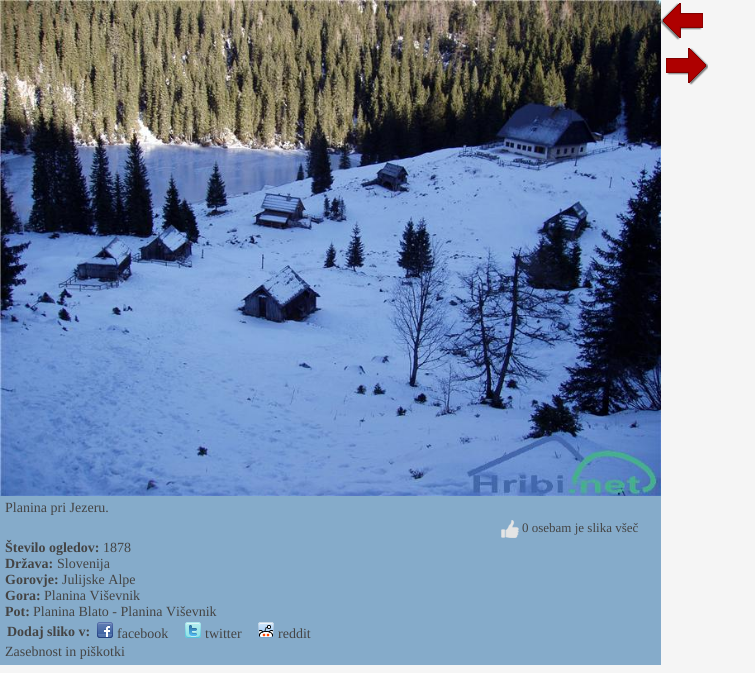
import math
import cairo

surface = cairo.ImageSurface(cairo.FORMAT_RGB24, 755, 673)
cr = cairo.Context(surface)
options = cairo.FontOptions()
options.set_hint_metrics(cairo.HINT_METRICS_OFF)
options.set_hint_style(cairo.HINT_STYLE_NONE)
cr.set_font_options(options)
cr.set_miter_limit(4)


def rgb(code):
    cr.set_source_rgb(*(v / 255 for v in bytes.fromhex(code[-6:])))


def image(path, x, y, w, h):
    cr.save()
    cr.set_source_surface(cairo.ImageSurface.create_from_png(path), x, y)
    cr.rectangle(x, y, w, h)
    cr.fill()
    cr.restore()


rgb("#f5f5f5")
cr.paint()
image("img/1.png", 661, 3, 42, 37)
image("img/2.png", 666, 48, 42, 37)
rgb("#85abca")
cr.rectangle(0, 496, 661, 169)
cr.fill()
image("img/3.png", 0, 0, 661, 496)
image("img/4.png", 501, 520, 18, 18)
image("img/5.png", 97, 622, 16, 16)
image("img/6.png", 185, 622, 16, 16)
image("img/7.png", 258, 622, 16, 16)
cr.select_font_face("Liberation Serif")
cr.set_font_size(14)
rgb("#444444")
cr.move_to(5, 512)
cr.show_text("Planina pri Jezeru.")
cr.set_font_size(13)
cr.move_to(522, 532)
cr.show_text("0 osebam je slika všeč")
cr.select_font_face("Liberation Serif", cairo.FONT_SLANT_NORMAL, cairo.FONT_WEIGHT_BOLD)
cr.set_font_size(14)
cr.move_to(5, 552)
cr.show_text("Število ogledov:")
cr.select_font_face("Liberation Serif")
cr.move_to(103, 552)
cr.show_text("1878")
cr.select_font_face("Liberation Serif", cairo.FONT_SLANT_NORMAL, cairo.FONT_WEIGHT_BOLD)
cr.move_to(5, 568)
cr.show_text("Država:")
cr.select_font_face("Liberation Serif")
cr.move_to(57, 568)
cr.show_text("Slovenija")
cr.select_font_face("Liberation Serif", cairo.FONT_SLANT_NORMAL, cairo.FONT_WEIGHT_BOLD)
cr.move_to(5, 584)
cr.show_text("Gorovje:")
cr.select_font_face("Liberation Serif")
cr.move_to(62, 584)
cr.show_text("Julijske Alpe")
cr.select_font_face("Liberation Serif", cairo.FONT_SLANT_NORMAL, cairo.FONT_WEIGHT_BOLD)
cr.move_to(5, 600)
cr.show_text("Gora:")
cr.select_font_face("Liberation Serif")
cr.move_to(44, 600)
cr.show_text("Planina Viševnik")
cr.select_font_face("Liberation Serif", cairo.FONT_SLANT_NORMAL, cairo.FONT_WEIGHT_BOLD)
cr.move_to(5, 616)
cr.show_text("Pot:")
cr.select_font_face("Liberation Serif")
cr.move_to(33, 616)
cr.show_text("Planina Blato - Planina Viševnik")
cr.select_font_face("Liberation Serif", cairo.FONT_SLANT_NORMAL, cairo.FONT_WEIGHT_BOLD)
cr.move_to(7, 636)
cr.show_text("Dodaj sliko v:")
cr.select_font_face("Liberation Serif")
for x, y, s in [
    (117, 638, "facebook"),
    (205, 638, "twitter"),
    (278, 638, "reddit"),
    (5, 656, "Zasebnost in piškotki"),
]:
    cr.move_to(x, y)
    cr.show_text(s)
surface.write_to_png("page.png")
